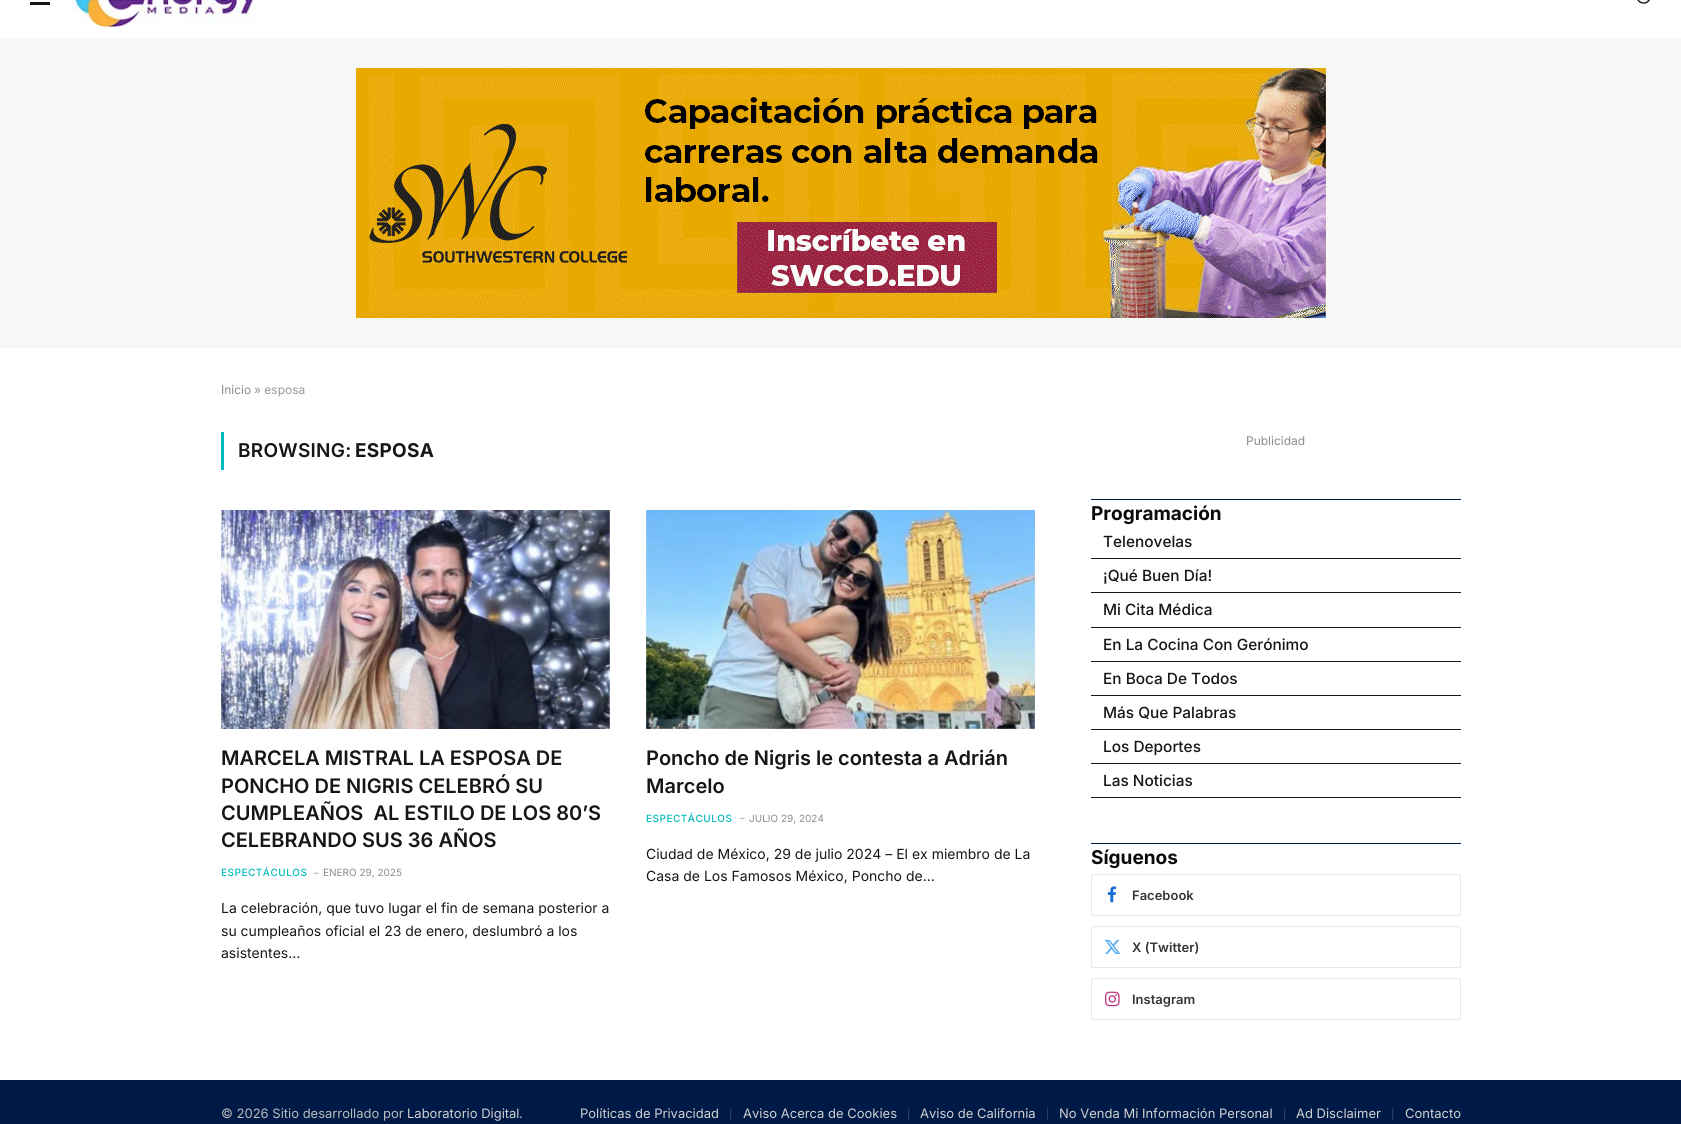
import math
import cairo

surface = cairo.ImageSurface(cairo.FORMAT_RGB24, 1681, 1124)
cr = cairo.Context(surface)
options = cairo.FontOptions()
options.set_hint_metrics(cairo.HINT_METRICS_OFF)
options.set_hint_style(cairo.HINT_STYLE_NONE)
cr.set_font_options(options)
cr.set_miter_limit(4)


def rgb(code):
    cr.set_source_rgb(*(v / 255 for v in bytes.fromhex(code[-6:])))


def tracked(x, y, s, letter, word):
    cr.move_to(x, y)
    for ch in s:
        cr.show_text(ch)
        cr.rel_move_to(letter + word * (ch == ' '), 0)


def rrect(x, y, w, h, r):
    cr.new_sub_path()
    for i, (u, v) in enumerate([(x + w - r, y + h - r), (x + r, y + h - r), (x + r, y + r), (x + w - r, y + r)]):
        cr.arc(u, v, r, i * math.pi / 2, (i + 1) * math.pi / 2)
    cr.close_path()


def image(path, x, y, w, h):
    cr.save()
    cr.set_source_surface(cairo.ImageSurface.create_from_png(path), x, y)
    cr.rectangle(x, y, w, h)
    cr.fill()
    cr.restore()


rgb("#ffffff")
cr.paint()
rgb("#161616")
cr.rectangle(30, 2, 20, 3)
cr.fill()
image("img/1.png", 71, 0, 187, 28)
image("img/2.png", 1637, 0, 13, 4)
rgb("#f7f7f7")
cr.rectangle(0, 38, 1681, 310)
cr.fill()
image("img/3.png", 356, 68, 970, 250)
rgb("#00bbbd")
cr.rectangle(221, 432, 3, 38)
cr.fill()
image("img/4.png", 221, 510, 389, 219)
image("img/5.png", 646, 510, 389, 219)
for x, y, w, h, color in [
    (1091, 499, 370, 1, "#001a47"),
    (1091, 558, 370, 1, "#161616"),
    (1091, 592, 370, 1, "#161616"),
    (1091, 627, 370, 1, "#161616"),
    (1091, 661, 370, 1, "#161616"),
    (1091, 695, 370, 1, "#161616"),
    (1091, 729, 370, 1, "#161616"),
    (1091, 763, 370, 1, "#161616"),
    (1091, 797, 370, 1, "#161616"),
    (1091, 843, 370, 1, "#001a47"),
]:
    rgb(color)
    cr.rectangle(x, y, w, h)
    cr.fill()
rrect(1091.5, 874.5, 369, 41, 1.5)
rgb("#e8e8e8")
cr.set_line_width(1)
cr.stroke()
image("img/6.png", 1107, 886, 10, 17)
rrect(1091.5, 926.5, 369, 41, 1.5)
cr.stroke()
image("img/7.png", 1104, 939, 17, 15)
rrect(1091.5, 978.5, 369, 41, 1.5)
cr.stroke()
image("img/8.png", 1105, 991, 15, 16)
rgb("#001a47")
cr.rectangle(0, 1080, 1681, 44)
cr.fill()
cr.select_font_face("Inter")
cr.set_font_size(12)
rgb("#8a8a8a")
cr.move_to(221, 394)
cr.show_text("Inicio")
rgb("#999999")
cr.move_to(254, 394)
cr.show_text("» esposa")
cr.select_font_face("Inter SemiBold")
cr.set_font_size(19)
rgb("#161616")
tracked(238, 457, "BROWSING:", 0.25, 0)
cr.select_font_face("Inter", cairo.FONT_SLANT_NORMAL, cairo.FONT_WEIGHT_BOLD)
tracked(355, 457, "ESPOSA", 0.25, 0)
cr.select_font_face("Inter SemiBold")
cr.set_font_size(20)
for x, y, s in [
    (221, 765, "MARCELA MISTRAL LA ESPOSA DE"),
    (221, 793, "PONCHO DE NIGRIS CELEBRÓ SU"),
    (221, 820, "CUMPLEAÑOS  AL ESTILO DE LOS 80’S"),
    (221, 847, "CELEBRANDO SUS 36 AÑOS"),
]:
    cr.move_to(x, y)
    cr.show_text(s)
cr.select_font_face("Inter Medium")
cr.set_font_size(10)
rgb("#00bbbd")
tracked(221, 876, "ESPECTÁCULOS", 0.5, 0)
cr.select_font_face("Inter")
cr.set_font_size(9)
rgb("#8a8a8a")
cr.move_to(314, 876)
cr.show_text("–")
cr.set_font_size(10)
cr.move_to(323, 876)
cr.show_text("ENERO 29, 2025")
cr.set_font_size(14)
rgb("#161616")
for x, y, s in [
    (221, 913, "La celebración, que tuvo lugar el fin de semana posterior a"),
    (221, 936, "su cumpleaños oficial el 23 de enero, deslumbró a los"),
    (221, 958, "asistentes…"),
]:
    cr.move_to(x, y)
    cr.show_text(s)
cr.select_font_face("Inter SemiBold")
cr.set_font_size(20)
cr.move_to(646, 765)
cr.show_text("Poncho de Nigris le contesta a Adrián")
cr.move_to(646, 793)
cr.show_text("Marcelo")
cr.select_font_face("Inter Medium")
cr.set_font_size(10)
rgb("#00bbbd")
tracked(646, 822, "ESPECTÁCULOS", 0.5, 0)
cr.select_font_face("Inter")
cr.set_font_size(9)
rgb("#8a8a8a")
cr.move_to(740, 821)
cr.show_text("–")
cr.set_font_size(10)
cr.move_to(749, 822)
cr.show_text("JULIO 29, 2024")
cr.set_font_size(14)
rgb("#161616")
cr.move_to(646, 859)
cr.show_text("Ciudad de México, 29 de julio 2024 – El ex miembro de La")
cr.move_to(646, 881)
cr.show_text("Casa de Los Famosos México, Poncho de…")
cr.set_font_size(12)
rgb("#8a8a8a")
cr.move_to(1246, 445)
cr.show_text("Publicidad")
cr.select_font_face("Inter", cairo.FONT_SLANT_NORMAL, cairo.FONT_WEIGHT_BOLD)
cr.set_font_size(19)
rgb("#0a0a0a")
cr.move_to(1091, 520)
cr.show_text("Programación")
cr.select_font_face("Inter Medium")
cr.set_font_size(15.4)
rgb("#161616")
for x, y, s in [
    (1103, 547, "Telenovelas"),
    (1103, 581, "¡Qué Buen Día!"),
    (1103, 615, "Mi Cita Médica"),
    (1103, 650, "En La Cocina Con Gerónimo"),
    (1103, 684, "En Boca De Todos"),
    (1103, 718, "Más Que Palabras"),
    (1103, 752, "Los Deportes"),
    (1103, 786, "Las Noticias"),
]:
    cr.move_to(x, y)
    cr.show_text(s)
cr.select_font_face("Inter", cairo.FONT_SLANT_NORMAL, cairo.FONT_WEIGHT_BOLD)
cr.set_font_size(19)
rgb("#0a0a0a")
cr.move_to(1091, 864)
cr.show_text("Síguenos")
cr.select_font_face("Inter SemiBold")
cr.set_font_size(13)
rgb("#333333")
for x, y, s in [
    (1132, 900, "Facebook"),
    (1132, 952, "X (Twitter)"),
    (1132, 1004, "Instagram"),
]:
    cr.move_to(x, y)
    cr.show_text(s)
cr.select_font_face("Inter")
rgb("#bbbbbb")
cr.move_to(221, 1118)
cr.show_text("© 2026 Sitio desarrollado por")
rgb("#d1d1d1")
cr.move_to(407, 1118)
cr.show_text("Laboratorio Digital")
rgb("#bbbbbb")
cr.move_to(519, 1118)
cr.show_text(".")
rgb("#d1d1d1")
cr.move_to(580, 1118)
cr.show_text("Políticas de Privacidad")
cr.set_font_size(10)
rgb("#384a6a")
cr.move_to(729, 1118)
cr.show_text("|")
cr.set_font_size(13)
rgb("#d1d1d1")
cr.move_to(743, 1118)
cr.show_text("Aviso Acerca de Cookies")
cr.set_font_size(10)
rgb("#384a6a")
cr.move_to(907, 1118)
cr.show_text("|")
cr.set_font_size(13)
rgb("#d1d1d1")
cr.move_to(920, 1118)
cr.show_text("Aviso de California")
cr.set_font_size(10)
rgb("#384a6a")
cr.move_to(1046, 1118)
cr.show_text("|")
cr.set_font_size(13)
rgb("#d1d1d1")
cr.move_to(1059, 1118)
cr.show_text("No Venda Mi Información Personal")
cr.set_font_size(10)
rgb("#384a6a")
cr.move_to(1283, 1118)
cr.show_text("|")
cr.set_font_size(13)
rgb("#d1d1d1")
cr.move_to(1296, 1118)
cr.show_text("Ad Disclaimer")
cr.set_font_size(10)
rgb("#384a6a")
cr.move_to(1391, 1118)
cr.show_text("|")
cr.set_font_size(13)
rgb("#d1d1d1")
cr.move_to(1405, 1118)
cr.show_text("Contacto")
surface.write_to_png("page.png")
